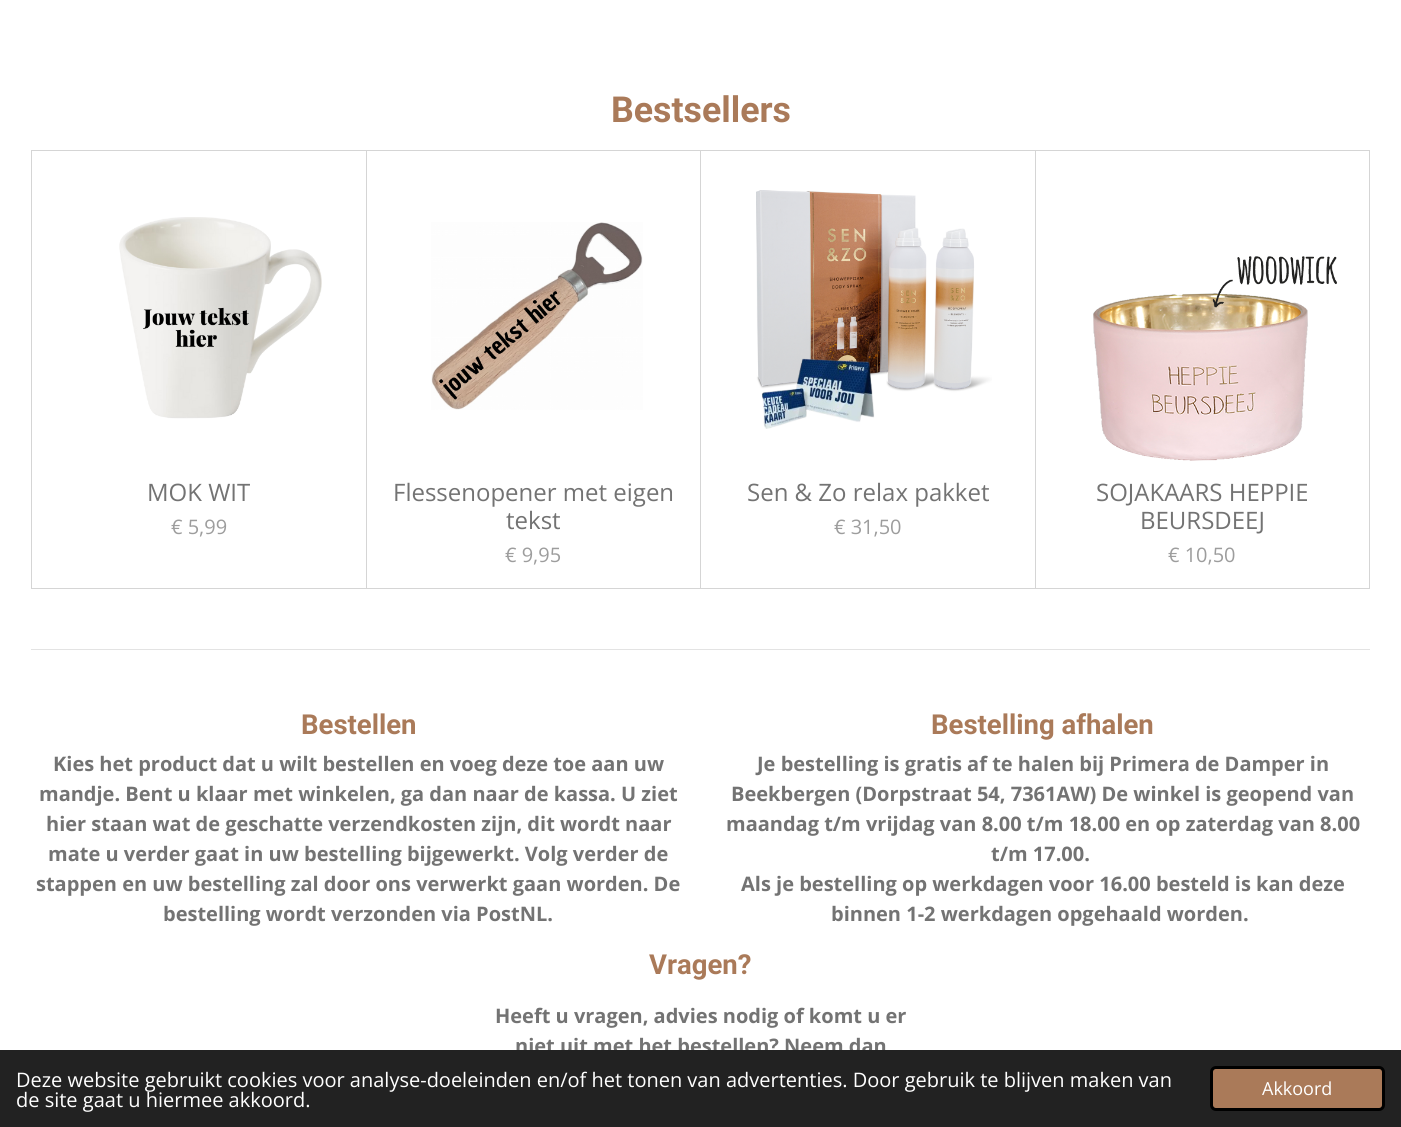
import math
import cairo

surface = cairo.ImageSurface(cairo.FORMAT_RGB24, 1401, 1127)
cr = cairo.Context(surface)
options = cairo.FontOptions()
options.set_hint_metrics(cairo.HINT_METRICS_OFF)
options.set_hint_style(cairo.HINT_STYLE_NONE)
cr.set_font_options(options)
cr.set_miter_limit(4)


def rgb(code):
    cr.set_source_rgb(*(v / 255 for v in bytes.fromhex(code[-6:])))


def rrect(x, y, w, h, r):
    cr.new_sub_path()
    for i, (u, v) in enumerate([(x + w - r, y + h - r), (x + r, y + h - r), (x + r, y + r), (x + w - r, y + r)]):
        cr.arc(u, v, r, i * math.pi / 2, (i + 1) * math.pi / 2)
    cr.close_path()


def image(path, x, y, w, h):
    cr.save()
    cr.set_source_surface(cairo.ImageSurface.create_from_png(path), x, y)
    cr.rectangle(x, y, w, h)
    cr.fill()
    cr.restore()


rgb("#ffffff")
cr.paint()
cr.rectangle(31.5, 150.5, 336, 438)
rgb("#d5d5d5")
cr.set_line_width(1)
cr.stroke()
image("img/1.png", 119, 217, 203, 202)
rgb("#ffffff")
cr.rectangle(367, 151, 1, 437)
cr.fill()
cr.rectangle(366.5, 150.5, 334, 438)
rgb("#d5d5d5")
cr.stroke()
image("img/2.png", 431, 222, 212, 188)
cr.rectangle(700.5, 150.5, 335, 438)
cr.stroke()
image("img/3.png", 756, 190, 236, 239)
cr.rectangle(1035.5, 150.5, 334, 438)
cr.stroke()
image("img/4.png", 1093, 256, 244, 205)
rgb("#e3e3e3")
cr.rectangle(31, 649, 1339, 1)
cr.fill()
cr.select_font_face("Roboto", cairo.FONT_SLANT_NORMAL, cairo.FONT_WEIGHT_BOLD)
cr.set_font_size(35.75)
rgb("#aa7a59")
cr.move_to(611, 122)
cr.show_text("Bestsellers")
cr.select_font_face("Open Sans")
cr.set_font_size(24)
rgb("#737373")
cr.move_to(147, 501)
cr.show_text("MOK WIT")
cr.set_font_size(20)
rgb("#9d9d9d")
cr.move_to(171, 534)
cr.show_text("€ 5,99")
cr.set_font_size(24)
rgb("#737373")
cr.move_to(393, 501)
cr.show_text("Flessenopener met eigen")
cr.move_to(506, 529)
cr.show_text("tekst")
cr.set_font_size(20)
rgb("#9d9d9d")
cr.move_to(505, 562)
cr.show_text("€ 9,95")
cr.set_font_size(24)
rgb("#737373")
cr.move_to(747, 501)
cr.show_text("Sen & Zo relax pakket")
cr.set_font_size(20)
rgb("#9d9d9d")
cr.move_to(834, 534)
cr.show_text("€ 31,50")
cr.set_font_size(24)
rgb("#737373")
cr.move_to(1096, 501)
cr.show_text("SOJAKAARS HEPPIE")
cr.move_to(1140, 529)
cr.show_text("BEURSDEEJ")
cr.set_font_size(20)
rgb("#9d9d9d")
cr.move_to(1168, 562)
cr.show_text("€ 10,50")
cr.select_font_face("Roboto", cairo.FONT_SLANT_NORMAL, cairo.FONT_WEIGHT_BOLD)
cr.set_font_size(27.5)
rgb("#aa7a59")
cr.move_to(301, 734)
cr.show_text("Bestellen")
cr.select_font_face("Open Sans", cairo.FONT_SLANT_NORMAL, cairo.FONT_WEIGHT_BOLD)
cr.set_font_size(20)
rgb("#737373")
for x, y, s in [
    (53, 771, "Kies het product dat u wilt bestellen en voeg deze toe aan uw"),
    (39, 801, "mandje. Bent u klaar met winkelen, ga dan naar de kassa. U ziet"),
    (46, 831, "hier staan wat de geschatte verzendkosten zijn, dit wordt naar"),
    (48, 861, "mate u verder gaat in uw bestelling bijgewerkt. Volg verder de"),
    (36, 891, "stappen en uw bestelling zal door ons verwerkt gaan worden. De"),
    (163, 921, "bestelling wordt verzonden via PostNL."),
]:
    cr.move_to(x, y)
    cr.show_text(s)
cr.select_font_face("Roboto", cairo.FONT_SLANT_NORMAL, cairo.FONT_WEIGHT_BOLD)
cr.set_font_size(27.5)
rgb("#aa7a59")
cr.move_to(931, 734)
cr.show_text("Bestelling afhalen")
cr.select_font_face("Open Sans", cairo.FONT_SLANT_NORMAL, cairo.FONT_WEIGHT_BOLD)
cr.set_font_size(20)
rgb("#737373")
for x, y, s in [
    (757, 771, "Je bestelling is gratis af te halen bij Primera de Damper in"),
    (731, 801, "Beekbergen (Dorpstraat 54, 7361AW) De winkel is geopend van"),
    (726, 831, "maandag t/m vrijdag van 8.00 t/m 18.00 en op zaterdag van 8.00"),
    (991, 861, "t/m 17.00."),
    (741, 891, "Als je bestelling op werkdagen voor 16.00 besteld is kan deze"),
    (831, 921, "binnen 1-2 werkdagen opgehaald worden."),
]:
    cr.move_to(x, y)
    cr.show_text(s)
cr.select_font_face("Roboto", cairo.FONT_SLANT_NORMAL, cairo.FONT_WEIGHT_BOLD)
cr.set_font_size(27.5)
rgb("#aa7a59")
cr.move_to(649, 974)
cr.show_text("Vragen?")
cr.select_font_face("Open Sans", cairo.FONT_SLANT_NORMAL, cairo.FONT_WEIGHT_BOLD)
cr.set_font_size(20)
rgb("#737373")
cr.move_to(495, 1023)
cr.show_text("Heeft u vragen, advies nodig of komt u er")
cr.move_to(515, 1053)
cr.show_text("niet uit met het bestellen? Neem dan")
rgb("#222222")
cr.rectangle(0, 1050, 1401, 77)
cr.fill()
cr.select_font_face("Open Sans")
rgb("#ffffff")
cr.move_to(16, 1087)
cr.show_text("Deze website gebruikt cookies voor analyse-doeleinden en/of het tonen van advertenties. Door gebruik te blijven maken van")
cr.move_to(16, 1107)
cr.show_text("de site gaat u hiermee akkoord.")
rgb("#aa7a59")
rrect(1211.5, 1067.5, 172, 42, 4.5)
cr.fill_preserve()
rgb("#000000")
cr.set_line_width(3)
cr.stroke()
cr.set_font_size(18)
rgb("#ffffff")
cr.move_to(1262, 1095)
cr.show_text("Akkoord")
surface.write_to_png("page.png")
